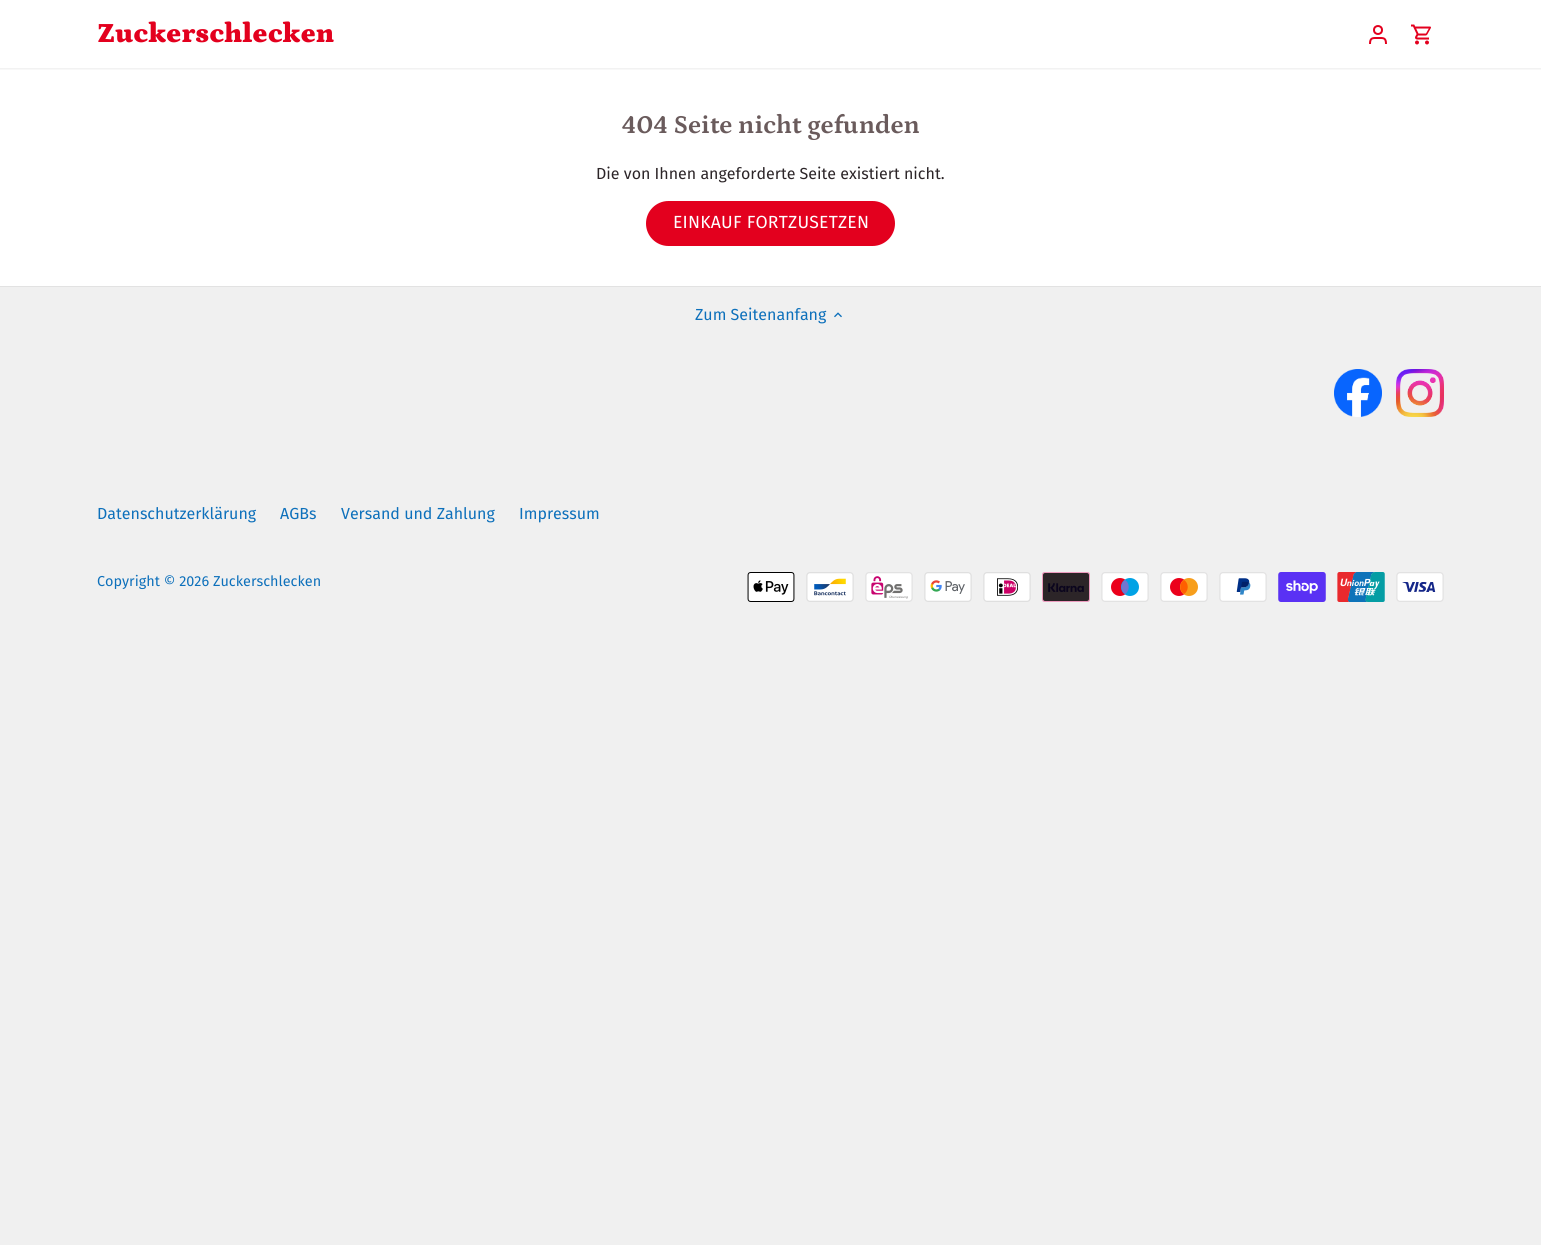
import math
import cairo

surface = cairo.ImageSurface(cairo.FORMAT_RGB24, 1541, 1245)
cr = cairo.Context(surface)
options = cairo.FontOptions()
options.set_hint_metrics(cairo.HINT_METRICS_OFF)
options.set_hint_style(cairo.HINT_STYLE_NONE)
cr.set_font_options(options)
cr.set_miter_limit(4)


def rgb(code):
    cr.set_source_rgb(*(v / 255 for v in bytes.fromhex(code[-6:])))


def tracked(x, y, s, letter, word):
    cr.move_to(x, y)
    for ch in s:
        cr.show_text(ch)
        cr.rel_move_to(letter + word * (ch == ' '), 0)


def rrect(x, y, w, h, r):
    cr.new_sub_path()
    for i, (u, v) in enumerate([(x + w - r, y + h - r), (x + r, y + h - r), (x + r, y + r), (x + w - r, y + r)]):
        cr.arc(u, v, r, i * math.pi / 2, (i + 1) * math.pi / 2)
    cr.close_path()


def soft_shadow(x, y, w, h, r, blur, alpha):
    cr.push_group_with_content(cairo.CONTENT_ALPHA)
    cr.set_operator(cairo.OPERATOR_SOURCE)
    for i in range(15, -16, -2):
        e = blur * i / 6
        if min(w, h) + 2 * e > 0:
            cr.set_source_rgba(0, 0, 0, alpha * math.erfc((i - 1) / 8.5) / 2)
            rrect(x - e, y - e, w + 2 * e, h + 2 * e, max(0, min(r + e + blur * .6, min(w, h) / 2 + e)))
            cr.fill()
    cr.mask(cr.pop_group())


def image(path, x, y, w, h):
    cr.save()
    cr.set_source_surface(cairo.ImageSurface.create_from_png(path), x, y)
    cr.rectangle(x, y, w, h)
    cr.fill()
    cr.restore()


rgb("#f0f0f0")
cr.paint()
rgb("#ffffff")
cr.rectangle(0, 0, 1541, 286)
cr.fill()
cr.save()
cr.rectangle(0, 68, 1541, 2)
cr.clip()
rgb("#000000")
soft_shadow(-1, -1, 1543, 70, 0, 1.5, 0.08)
cr.restore()
cr.arc(1378, 30, 4, 0, 2 * math.pi)
rgb("#e3001e")
cr.stroke()
cr.new_path()
cr.move_to(1386, 44)
cr.curve_to(1386, 37.5, 1383.5, 38, 1378, 38)
cr.curve_to(1372.5, 38, 1370, 37.5, 1370, 44)
cr.stroke()
image("img/1.png", 1411, 24, 20, 21)
rrect(647, 202, 247, 43, 21.5)
cr.fill_preserve()
cr.stroke()
rgb("#e2e2e2")
cr.rectangle(0, 286, 1541, 1)
cr.fill()
image("img/2.png", 834, 312, 8, 6)
image("img/3.png", 1334, 369, 48, 48)
image("img/4.png", 1396, 369, 48, 48)
image("img/5.png", 747, 572, 48, 30)
image("img/6.png", 806, 572, 48, 30)
image("img/7.png", 865, 572, 48, 30)
image("img/8.png", 924, 572, 48, 30)
image("img/9.png", 983, 572, 48, 30)
image("img/10.png", 1042, 572, 48, 30)
image("img/11.png", 1101, 572, 48, 30)
image("img/12.png", 1160, 572, 48, 30)
image("img/13.png", 1219, 572, 48, 30)
image("img/14.png", 1278, 572, 48, 30)
image("img/15.png", 1337, 572, 48, 30)
image("img/16.png", 1396, 572, 48, 30)
cr.select_font_face("Petrona Black")
cr.set_font_size(28)
rgb("#e3001e")
cr.move_to(97, 42)
cr.show_text("Zuckerschlecken")
cr.select_font_face("Petrona", cairo.FONT_SLANT_NORMAL, cairo.FONT_WEIGHT_BOLD)
cr.set_font_size(26)
rgb("#6a5b5c")
cr.move_to(622, 133)
cr.show_text("404 Seite nicht gefunden")
cr.select_font_face("Fira Sans")
cr.set_font_size(16)
rgb("#2c2528")
cr.move_to(596, 179)
cr.show_text("Die von Ihnen angeforderte Seite existiert nicht.")
cr.set_font_size(17.6)
rgb("#ffffff")
tracked(673, 228, "EINKAUF FORTZUSETZEN", 0.2, 0)
cr.set_font_size(16)
rgb("#0d70bb")
for x, y, s in [
    (695, 320, "Zum Seitenanfang"),
    (97, 519, "Datenschutzerklärung"),
    (280, 519, "AGBs"),
    (341, 519, "Versand und Zahlung"),
    (519, 519, "Impressum"),
]:
    cr.move_to(x, y)
    cr.show_text(s)
cr.set_font_size(14.4)
cr.move_to(97, 586)
cr.show_text("Copyright © 2026 Zuckerschlecken")
surface.write_to_png("page.png")
